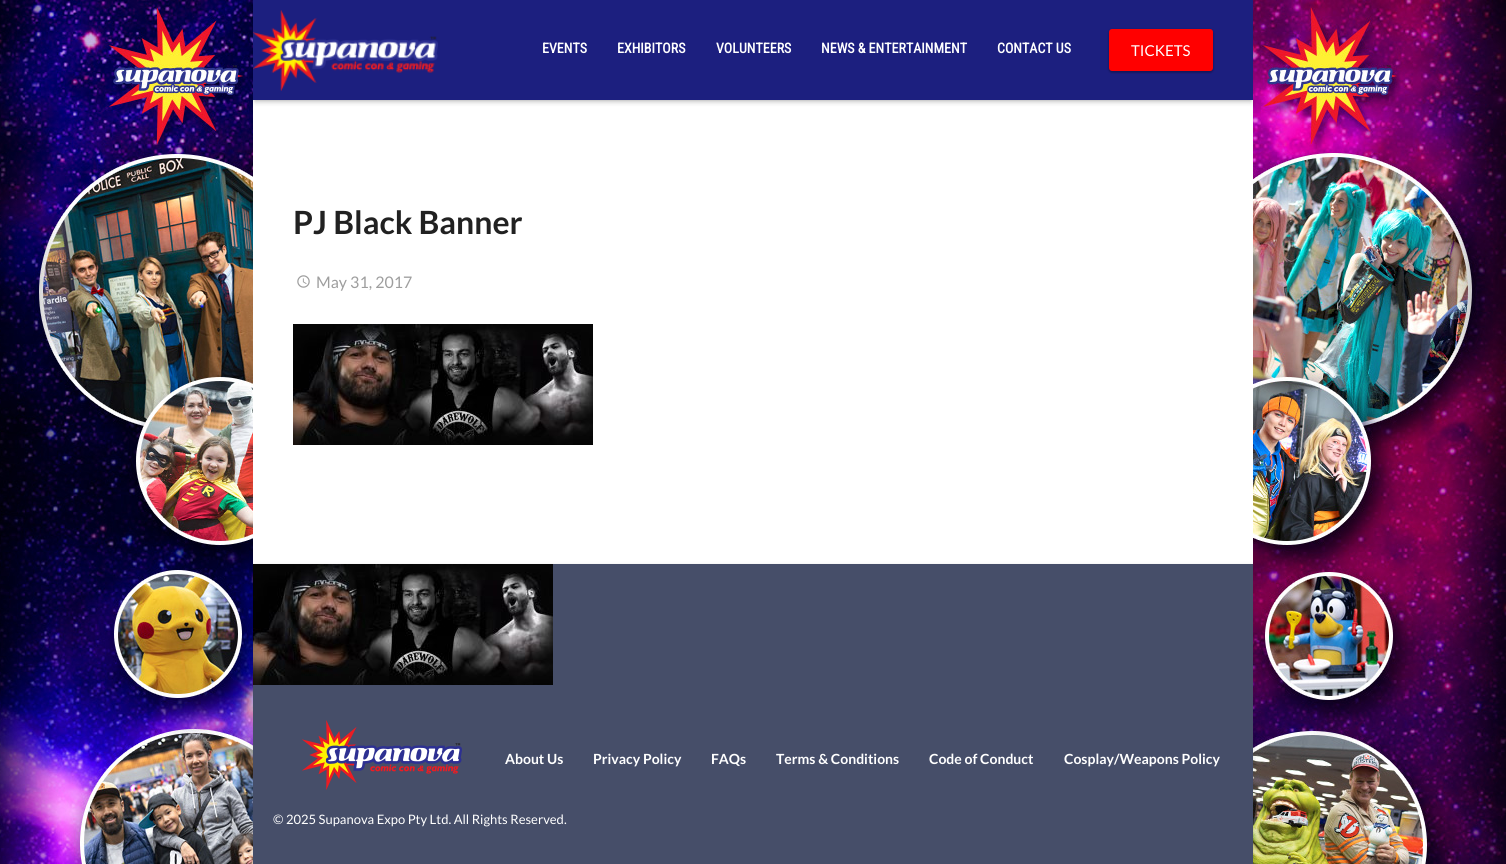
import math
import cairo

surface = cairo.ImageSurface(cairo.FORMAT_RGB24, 1506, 864)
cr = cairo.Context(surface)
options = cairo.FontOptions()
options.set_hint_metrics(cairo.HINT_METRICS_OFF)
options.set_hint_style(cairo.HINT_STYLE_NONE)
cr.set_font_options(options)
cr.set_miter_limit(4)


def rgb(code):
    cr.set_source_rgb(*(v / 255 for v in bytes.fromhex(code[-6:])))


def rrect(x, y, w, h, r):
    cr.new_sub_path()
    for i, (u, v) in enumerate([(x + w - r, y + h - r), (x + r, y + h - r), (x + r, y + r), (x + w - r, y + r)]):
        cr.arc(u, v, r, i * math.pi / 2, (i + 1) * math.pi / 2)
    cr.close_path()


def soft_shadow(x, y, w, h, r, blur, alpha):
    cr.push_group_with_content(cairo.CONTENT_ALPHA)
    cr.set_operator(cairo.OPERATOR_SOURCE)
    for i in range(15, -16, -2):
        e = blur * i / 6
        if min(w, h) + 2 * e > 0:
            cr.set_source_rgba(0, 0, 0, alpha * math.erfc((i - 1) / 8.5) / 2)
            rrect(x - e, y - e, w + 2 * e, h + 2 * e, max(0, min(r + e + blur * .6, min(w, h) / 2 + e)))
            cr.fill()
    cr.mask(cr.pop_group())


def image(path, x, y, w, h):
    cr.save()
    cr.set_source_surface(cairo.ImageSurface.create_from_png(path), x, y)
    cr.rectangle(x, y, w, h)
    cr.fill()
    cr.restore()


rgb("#ffffff")
cr.paint()
image("img/1.png", 0, 0, 253, 864)
image("img/3.png", 1253, 0, 253, 864)
rgb("#000000")
soft_shadow(254, 3, 998, 98, 0, 0.5, 0.05)
soft_shadow(255, 6, 996, 96, 0, 2.5, 0.22)
rgb("#1c1f7f")
cr.rectangle(253, 0, 1000, 100)
cr.fill()
image("img/2.png", 253, 10, 185, 81)
rgb("#000000")
soft_shadow(1109, 30, 104, 42, 3, 1.5, 0.3)
soft_shadow(1109, 31, 104, 42, 3, 0.5, 0.1)
rgb("#ff0000")
rrect(1109, 29, 104, 42, 3)
cr.fill()
image("img/4.png", 297, 275, 13, 13)
image("img/5.png", 293, 324, 300, 121)
rgb("#000000")
soft_shadow(253, 566, 1000, 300, 0, 2.5, 0.15)
rgb("#464e69")
cr.rectangle(253, 564, 1000, 300)
cr.fill()
image("img/5.png", 253, 564, 300, 121)
image("img/6.png", 302, 720, 160, 70)
cr.select_font_face("Roboto Condensed", cairo.FONT_SLANT_NORMAL, cairo.FONT_WEIGHT_BOLD)
cr.set_font_size(14)
rgb("#ffffff")
for x, y, s in [
    (542, 53, "EVENTS"),
    (617, 53, "EXHIBITORS"),
    (716, 53, "VOLUNTEERS"),
    (821, 53, "NEWS & ENTERTAINMENT"),
    (997, 53, "CONTACT US"),
]:
    cr.move_to(x, y)
    cr.show_text(s)
cr.select_font_face("Lato")
cr.set_font_size(15)
cr.move_to(1131, 56)
cr.show_text("TICKETS")
cr.select_font_face("Lato", cairo.FONT_SLANT_NORMAL, cairo.FONT_WEIGHT_BOLD)
cr.set_font_size(32)
rgb("#212121")
cr.move_to(293, 234)
cr.show_text("PJ Black Banner")
cr.select_font_face("Lato")
cr.set_font_size(16)
rgb("#9e9e9e")
cr.move_to(316, 288)
cr.show_text("May 31, 2017")
cr.select_font_face("Lato", cairo.FONT_SLANT_NORMAL, cairo.FONT_WEIGHT_BOLD)
cr.set_font_size(14)
rgb("#ffffff")
for x, y, s in [
    (505, 764, "About Us"),
    (593, 764, "Privacy Policy"),
    (711, 764, "FAQs"),
    (776, 764, "Terms & Conditions"),
    (929, 764, "Code of Conduct"),
    (1064, 764, "Cosplay/Weapons Policy"),
]:
    cr.move_to(x, y)
    cr.show_text(s)
cr.select_font_face("Lato")
cr.set_font_size(13)
cr.move_to(273, 824)
cr.show_text("© 2025 Supanova Expo Pty Ltd. All Rights Reserved.")
surface.write_to_png("page.png")
